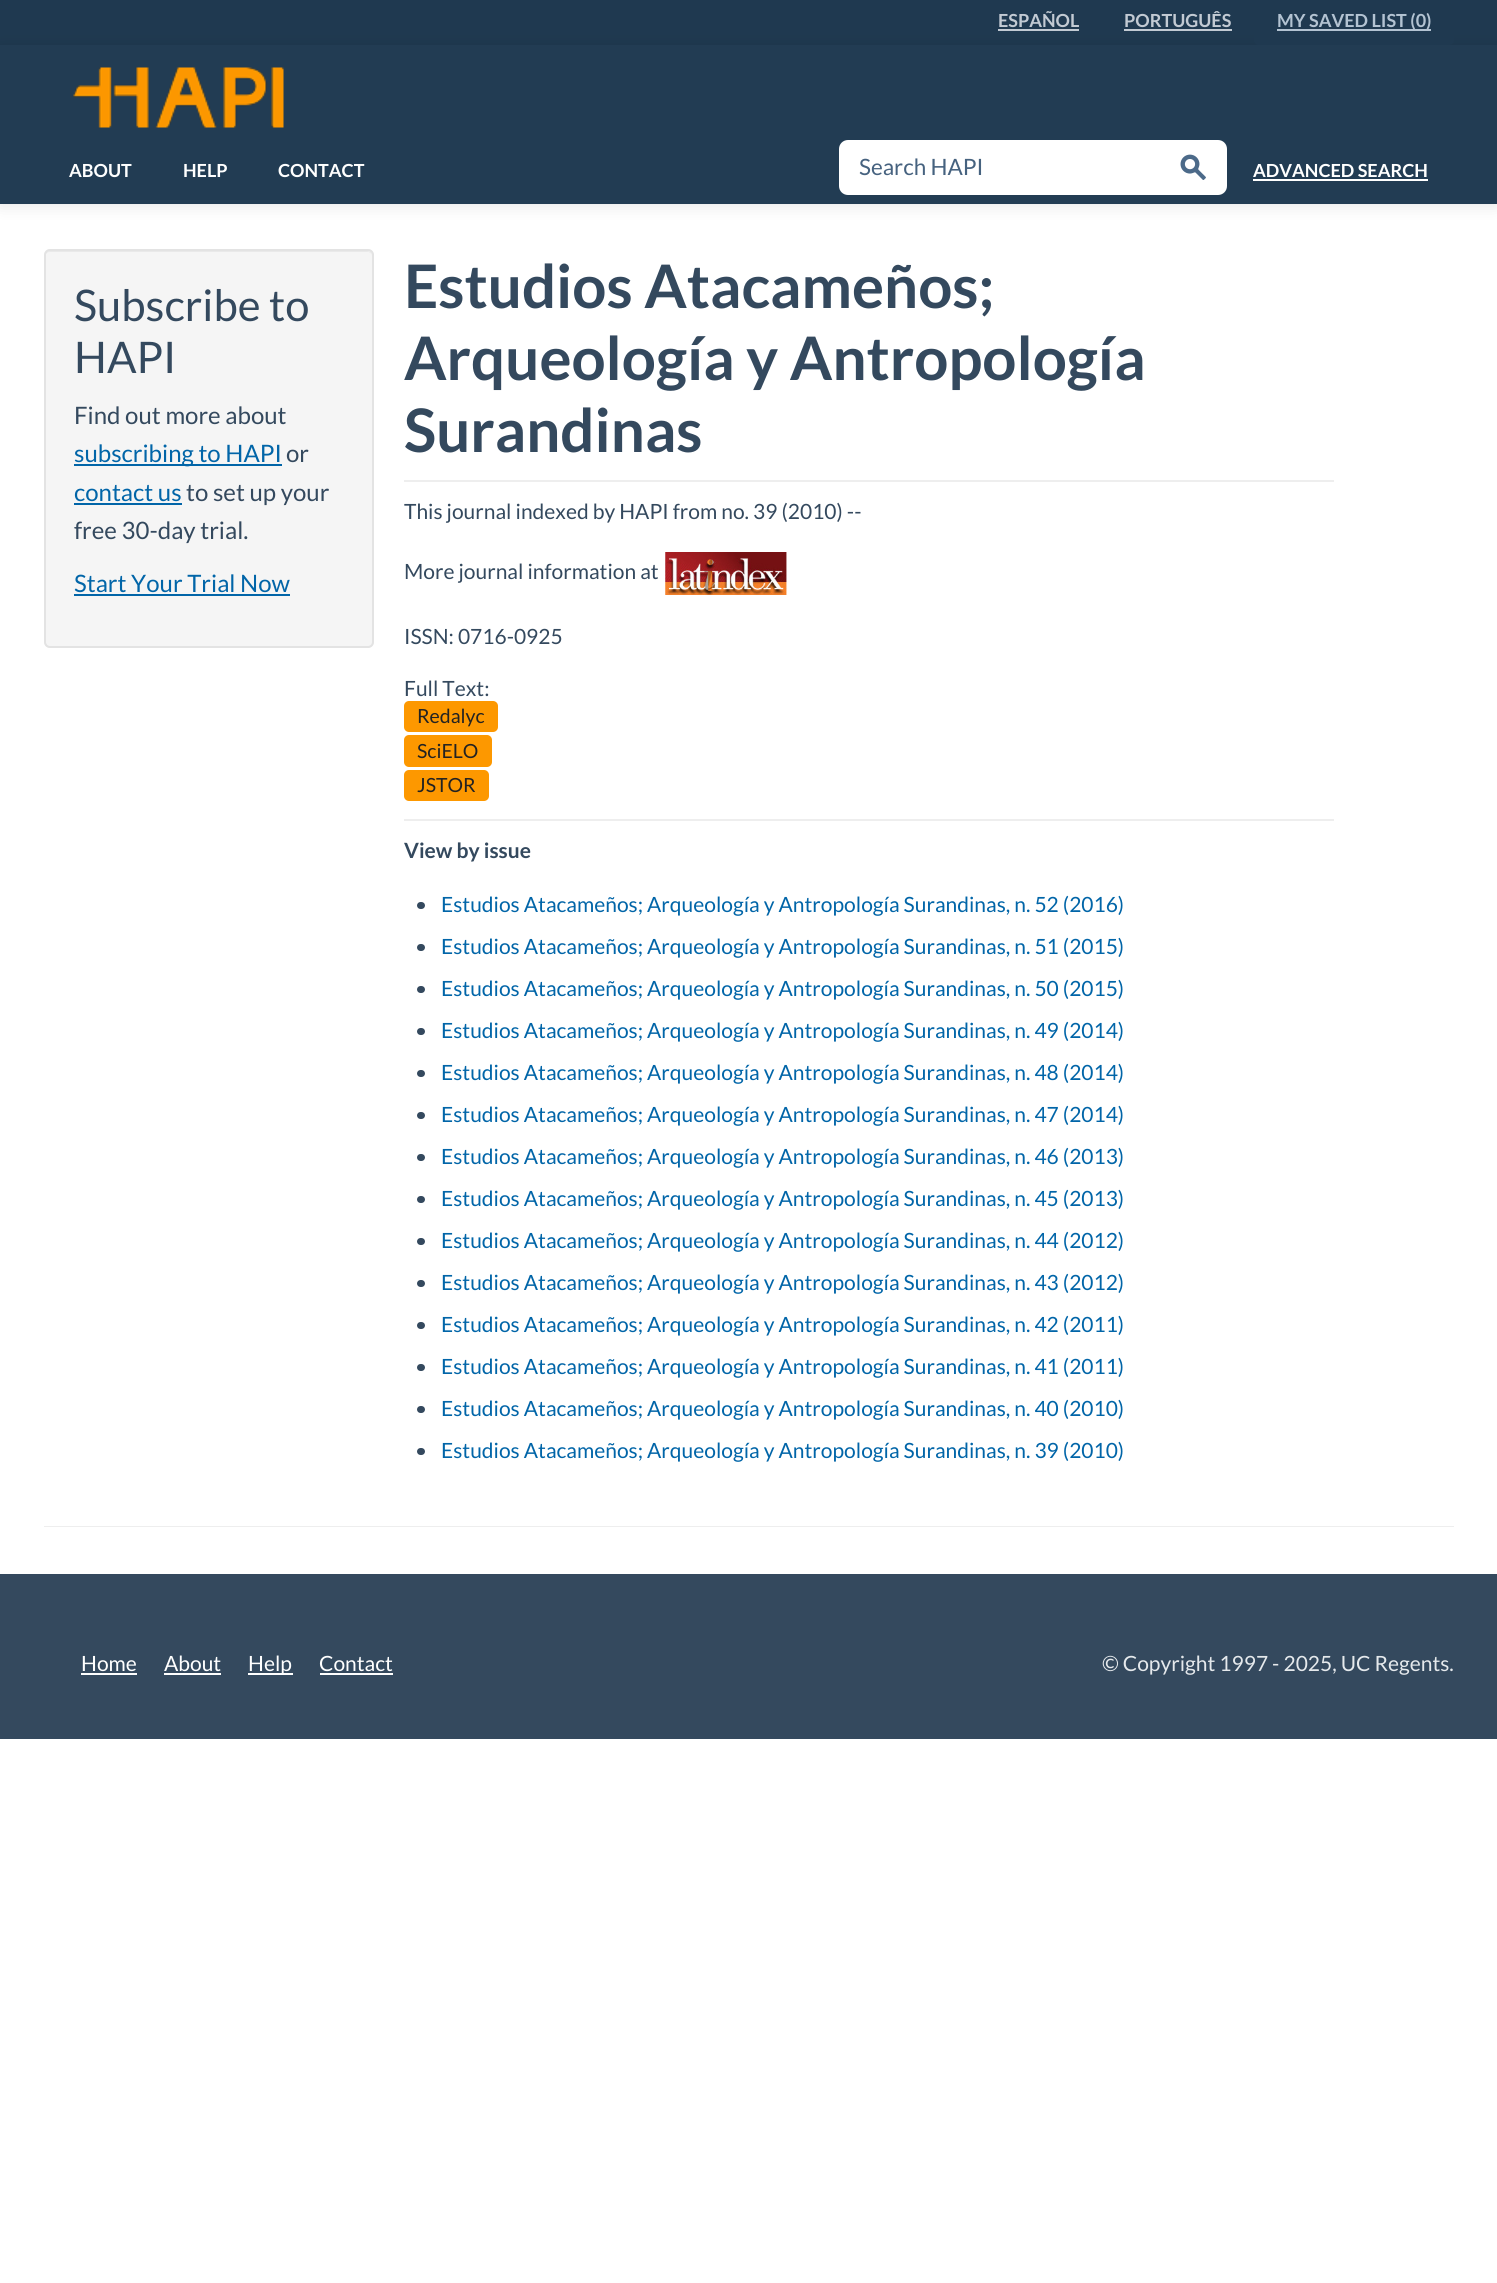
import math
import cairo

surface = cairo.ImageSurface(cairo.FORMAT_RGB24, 1497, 2283)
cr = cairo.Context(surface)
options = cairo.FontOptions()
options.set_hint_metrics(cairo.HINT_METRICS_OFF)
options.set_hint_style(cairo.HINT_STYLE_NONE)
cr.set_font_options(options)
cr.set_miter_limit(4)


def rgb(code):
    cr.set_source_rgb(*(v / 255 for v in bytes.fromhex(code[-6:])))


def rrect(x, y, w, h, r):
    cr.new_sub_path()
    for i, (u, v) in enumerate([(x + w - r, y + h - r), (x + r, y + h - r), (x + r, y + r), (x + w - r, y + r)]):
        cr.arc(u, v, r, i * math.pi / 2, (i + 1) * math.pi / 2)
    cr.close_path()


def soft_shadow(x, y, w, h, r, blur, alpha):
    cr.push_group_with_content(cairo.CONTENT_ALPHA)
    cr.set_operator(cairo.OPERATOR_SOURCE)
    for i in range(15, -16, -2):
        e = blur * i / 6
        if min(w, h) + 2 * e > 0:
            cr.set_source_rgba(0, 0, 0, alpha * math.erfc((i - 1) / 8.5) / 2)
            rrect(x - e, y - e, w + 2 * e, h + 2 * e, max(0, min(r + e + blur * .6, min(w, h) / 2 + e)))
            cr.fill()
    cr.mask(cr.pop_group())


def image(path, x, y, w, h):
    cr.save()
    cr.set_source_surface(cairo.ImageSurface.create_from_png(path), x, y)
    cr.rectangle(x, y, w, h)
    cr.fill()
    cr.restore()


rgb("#ffffff")
cr.paint()
rgb("#1f3950")
cr.rectangle(0, 0, 1497, 45)
cr.fill()
rgb("#000000")
soft_shadow(0, 47, 1497, 159, 0, 7.5, 0.1)
rgb("#c2cad3")
cr.rectangle(998, 29, 81, 2)
cr.fill()
cr.rectangle(1124, 29, 108, 2)
cr.fill()
rgb("#1f3950")
rrect(1254, 0, 200, 45, 5)
cr.fill()
rgb("#b3c3d2")
cr.rectangle(1277, 29, 154, 2)
cr.fill()
rgb("#223c53")
cr.rectangle(0, 45, 1497, 159)
cr.fill()
image("img/1.png", 73, 67, 211, 61)
rgb("#ffffff")
cr.new_path()
cr.move_to(1163, 140)
cr.line_to(1218, 140)
cr.curve_to(1223, 140, 1227, 144, 1227, 149)
cr.line_to(1227, 186)
cr.curve_to(1227, 191, 1223, 195, 1218, 195)
cr.line_to(1163, 195)
cr.close_path()
cr.fill()
cr.new_path()
cr.move_to(848, 140)
cr.line_to(1166, 140)
cr.line_to(1166, 195)
cr.line_to(848, 195)
cr.curve_to(843, 195, 839, 191, 839, 186)
cr.line_to(839, 149)
cr.curve_to(839, 144, 843, 140, 848, 140)
cr.close_path()
cr.fill()
image("img/2.png", 1180, 154, 26, 26)
cr.rectangle(1253, 179, 175, 2)
cr.fill()
rgb("#f5f5f5")
rrect(44, 249, 330, 399, 6)
cr.fill()
rgb("#e9e9e9")
cr.new_path()
cr.move_to(50, 252)
cr.line_to(368, 252)
cr.curve_to(370, 252, 372, 254, 372, 256)
cr.curve_to(372, 253, 370, 251, 367, 251)
cr.line_to(50, 251)
cr.curve_to(47, 251, 45, 253, 45, 256)
cr.curve_to(45, 254, 47, 252, 50, 252)
cr.close_path()
cr.fill()
rrect(45, 250, 328, 397, 5)
rgb("#e3e3e3")
cr.stroke()
for x, y, w, h, color in [
    (74, 464, 208, 2, "#0165a8"),
    (74, 503, 108, 2, "#0165a8"),
    (74, 594, 216, 2, "#0165a8"),
    (404, 480, 930, 2, "#eeeeee"),
]:
    rgb(color)
    cr.rectangle(x, y, w, h)
    cr.fill()
image("img/3.png", 665, 552, 122, 43)
rgb("#fd9800")
rrect(404, 701, 94, 31, 5)
cr.fill()
rrect(404, 735, 88, 32, 5)
cr.fill()
rrect(404, 770, 85, 31, 5)
cr.fill()
rgb("#eeeeee")
cr.rectangle(404, 819, 930, 2)
cr.fill()
rgb("#34495e")
rrect(417, 902, 8, 7, 3.5)
cr.fill()
rrect(417, 944, 8, 7, 3.5)
cr.fill()
rrect(417, 986, 8, 7, 3.5)
cr.fill()
rrect(417, 1028, 8, 7, 3.5)
cr.fill()
rrect(417, 1070, 8, 7, 3.5)
cr.fill()
rrect(417, 1112, 8, 7, 3.5)
cr.fill()
rrect(417, 1154, 8, 7, 3.5)
cr.fill()
rrect(417, 1196, 8, 7, 3.5)
cr.fill()
rrect(417, 1238, 8, 7, 3.5)
cr.fill()
rrect(417, 1280, 8, 7, 3.5)
cr.fill()
rrect(417, 1322, 8, 7, 3.5)
cr.fill()
rrect(417, 1364, 8, 7, 3.5)
cr.fill()
rrect(417, 1406, 8, 7, 3.5)
cr.fill()
rrect(417, 1448, 8, 7, 3.5)
cr.fill()
for x, y, w, h, color in [
    (44, 1526, 1410, 1, "#eeeeee"),
    (0, 1574, 1497, 165, "#34495e"),
    (81, 1673, 56, 2, "#ffffff"),
    (164, 1673, 57, 2, "#ffffff"),
    (248, 1673, 45, 2, "#ffffff"),
    (320, 1673, 73, 2, "#ffffff"),
]:
    rgb(color)
    cr.rectangle(x, y, w, h)
    cr.fill()
cr.select_font_face("Lato", cairo.FONT_SLANT_NORMAL, cairo.FONT_WEIGHT_BOLD)
cr.set_font_size(18)
rgb("#c2cad3")
cr.move_to(998, 27)
cr.show_text("ESPAÑOL")
cr.move_to(1124, 27)
cr.show_text("PORTUGUÊS")
rgb("#b3c3d2")
cr.move_to(1277, 27)
cr.show_text("MY SAVED LIST (0)")
rgb("#ffffff")
for x, y, s in [
    (69, 177, "ABOUT"),
    (183, 177, "HELP"),
    (278, 177, "CONTACT"),
]:
    cr.move_to(x, y)
    cr.show_text(s)
cr.select_font_face("Lato")
cr.set_font_size(22.5)
rgb("#46627f")
cr.move_to(859, 175)
cr.show_text("Search HAPI")
cr.select_font_face("Lato", cairo.FONT_SLANT_NORMAL, cairo.FONT_WEIGHT_BOLD)
cr.set_font_size(18)
rgb("#ffffff")
cr.move_to(1253, 177)
cr.show_text("ADVANCED SEARCH")
cr.select_font_face("Lato")
cr.set_font_size(43.5)
rgb("#34495e")
cr.move_to(74, 321)
cr.show_text("Subscribe to")
cr.move_to(74, 373)
cr.show_text("HAPI")
cr.set_font_size(24)
cr.move_to(74, 424)
cr.show_text("Find out more about")
rgb("#0165a8")
cr.move_to(74, 462)
cr.show_text("subscribing to HAPI")
rgb("#34495e")
cr.move_to(286, 462)
cr.show_text("or")
rgb("#0165a8")
cr.move_to(74, 501)
cr.show_text("contact us")
rgb("#34495e")
cr.move_to(186, 501)
cr.show_text("to set up your")
cr.move_to(74, 539)
cr.show_text("free 30-day trial.")
rgb("#0165a8")
cr.move_to(74, 592)
cr.show_text("Start Your Trial Now")
cr.select_font_face("Lato", cairo.FONT_SLANT_NORMAL, cairo.FONT_WEIGHT_BOLD)
cr.set_font_size(60)
rgb("#34495e")
for x, y, s in [
    (404, 308, "Estudios Atacameños;"),
    (404, 380, "Arqueología y Antropología"),
    (404, 452, "Surandinas"),
]:
    cr.move_to(x, y)
    cr.show_text(s)
cr.select_font_face("Lato")
cr.set_font_size(21)
for x, y, s in [
    (404, 519, "This journal indexed by HAPI from no. 39 (2010) --"),
    (404, 579, "More journal information at"),
    (404, 644, "ISSN: 0716-0925"),
    (404, 696, "Full Text:"),
]:
    cr.move_to(x, y)
    cr.show_text(s)
cr.set_font_size(19.5)
rgb("#222222")
for x, y, s in [
    (417, 723, "Redalyc"),
    (417, 758, "SciELO"),
    (417, 792, "JSTOR"),
]:
    cr.move_to(x, y)
    cr.show_text(s)
cr.select_font_face("Lato", cairo.FONT_SLANT_NORMAL, cairo.FONT_WEIGHT_BOLD)
cr.set_font_size(21)
rgb("#34495e")
cr.move_to(404, 858)
cr.show_text("View by issue")
cr.select_font_face("Lato")
rgb("#0165a8")
for x, y, s in [
    (441, 912, "Estudios Atacameños; Arqueología y Antropología Surandinas, n. 52 (2016)"),
    (441, 954, "Estudios Atacameños; Arqueología y Antropología Surandinas, n. 51 (2015)"),
    (441, 996, "Estudios Atacameños; Arqueología y Antropología Surandinas, n. 50 (2015)"),
    (441, 1038, "Estudios Atacameños; Arqueología y Antropología Surandinas, n. 49 (2014)"),
    (441, 1080, "Estudios Atacameños; Arqueología y Antropología Surandinas, n. 48 (2014)"),
    (441, 1122, "Estudios Atacameños; Arqueología y Antropología Surandinas, n. 47 (2014)"),
    (441, 1164, "Estudios Atacameños; Arqueología y Antropología Surandinas, n. 46 (2013)"),
    (441, 1206, "Estudios Atacameños; Arqueología y Antropología Surandinas, n. 45 (2013)"),
    (441, 1248, "Estudios Atacameños; Arqueología y Antropología Surandinas, n. 44 (2012)"),
    (441, 1290, "Estudios Atacameños; Arqueología y Antropología Surandinas, n. 43 (2012)"),
    (441, 1332, "Estudios Atacameños; Arqueología y Antropología Surandinas, n. 42 (2011)"),
    (441, 1374, "Estudios Atacameños; Arqueología y Antropología Surandinas, n. 41 (2011)"),
    (441, 1416, "Estudios Atacameños; Arqueología y Antropología Surandinas, n. 40 (2010)"),
    (441, 1458, "Estudios Atacameños; Arqueología y Antropología Surandinas, n. 39 (2010)"),
]:
    cr.move_to(x, y)
    cr.show_text(s)
rgb("#ffffff")
for x, y, s in [
    (81, 1671, "Home"),
    (164, 1671, "About"),
    (248, 1671, "Help"),
    (319, 1671, "Contact"),
]:
    cr.move_to(x, y)
    cr.show_text(s)
rgb("#e5e9ec")
cr.move_to(1102, 1671)
cr.show_text("© Copyright 1997 - 2025, UC Regents.")
surface.write_to_png("page.png")
